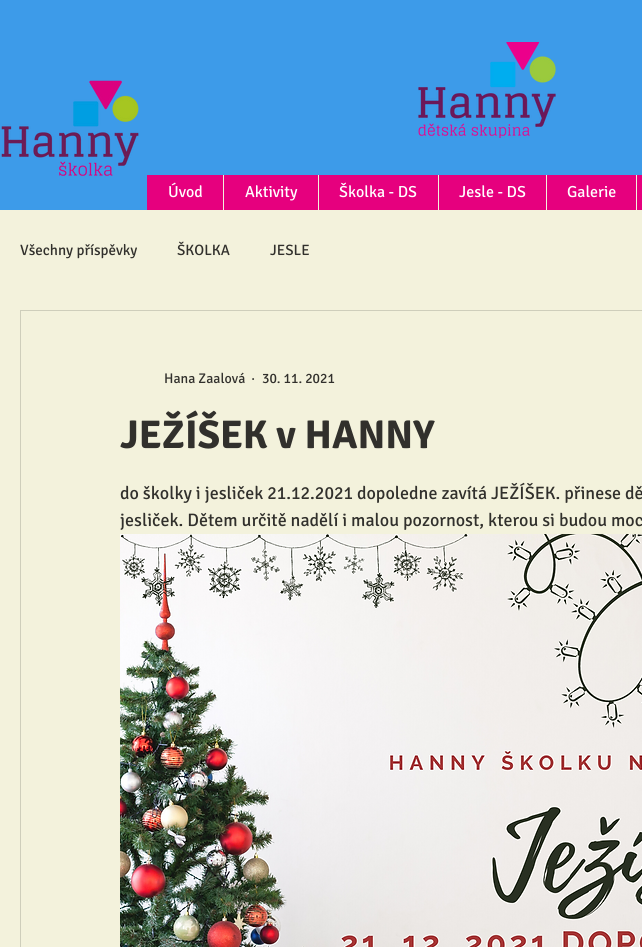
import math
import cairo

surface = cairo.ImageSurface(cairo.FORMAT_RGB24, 642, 947)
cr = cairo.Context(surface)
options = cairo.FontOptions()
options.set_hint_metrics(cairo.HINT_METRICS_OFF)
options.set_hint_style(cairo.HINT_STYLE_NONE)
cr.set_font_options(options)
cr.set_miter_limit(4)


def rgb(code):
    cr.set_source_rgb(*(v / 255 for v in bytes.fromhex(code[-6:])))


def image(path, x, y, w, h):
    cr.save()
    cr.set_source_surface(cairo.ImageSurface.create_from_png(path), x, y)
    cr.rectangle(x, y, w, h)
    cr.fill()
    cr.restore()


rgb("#3d9be9")
cr.paint()
image("img/1.png", 1, 80, 138, 96)
image("img/2.png", 418, 42, 138, 96)
for x, y, w, h, color in [
    (147, 175, 495, 35, "#e6007e"),
    (223, 175, 1, 35, "#f3f2dc"),
    (318, 175, 1, 35, "#f3f2dc"),
    (438, 175, 1, 35, "#f3f2dc"),
    (546, 175, 1, 35, "#f3f2dc"),
    (636, 175, 1, 35, "#f3f2dc"),
    (0, 210, 642, 737, "#f3f2dc"),
]:
    rgb(color)
    cr.rectangle(x, y, w, h)
    cr.fill()
cr.rectangle(20.5, 310.5, 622, 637)
rgb("#cecebb")
cr.set_line_width(1)
cr.stroke()
image("img/3.png", 120, 534, 522, 413)
cr.select_font_face("Signika")
cr.set_font_size(16)
rgb("#ffffff")
for x, y, s in [
    (168, 197, "Úvod"),
    (245, 197, "Aktivity"),
    (339, 197, "Školka - DS"),
    (459, 197, "Jesle - DS"),
    (567, 197, "Galerie"),
]:
    cr.move_to(x, y)
    cr.show_text(s)
cr.set_font_size(15)
rgb("#31302c")
for x, y, s in [
    (20, 255, "Všechny příspěvky"),
    (177, 255, "ŠKOLKA"),
    (270, 255, "JESLE"),
]:
    cr.move_to(x, y)
    cr.show_text(s)
cr.set_font_size(14)
for x, y, s in [
    (164, 383, "Hana Zaalová"),
    (251, 383, "·"),
    (262, 383, "30. 11. 2021"),
]:
    cr.move_to(x, y)
    cr.show_text(s)
cr.select_font_face("Signika", cairo.FONT_SLANT_NORMAL, cairo.FONT_WEIGHT_BOLD)
cr.set_font_size(40)
cr.move_to(120, 448)
cr.show_text("JEŽÍŠEK v HANNY")
cr.select_font_face("Signika")
cr.set_font_size(18)
cr.move_to(120, 499)
cr.show_text("do školky i jesliček 21.12.2021 dopoledne zavítá JEŽÍŠEK. přinese dě")
cr.move_to(120, 526)
cr.show_text("jesliček. Dětem určitě nadělí i malou pozornost, kterou si budou moc")
surface.write_to_png("page.png")
